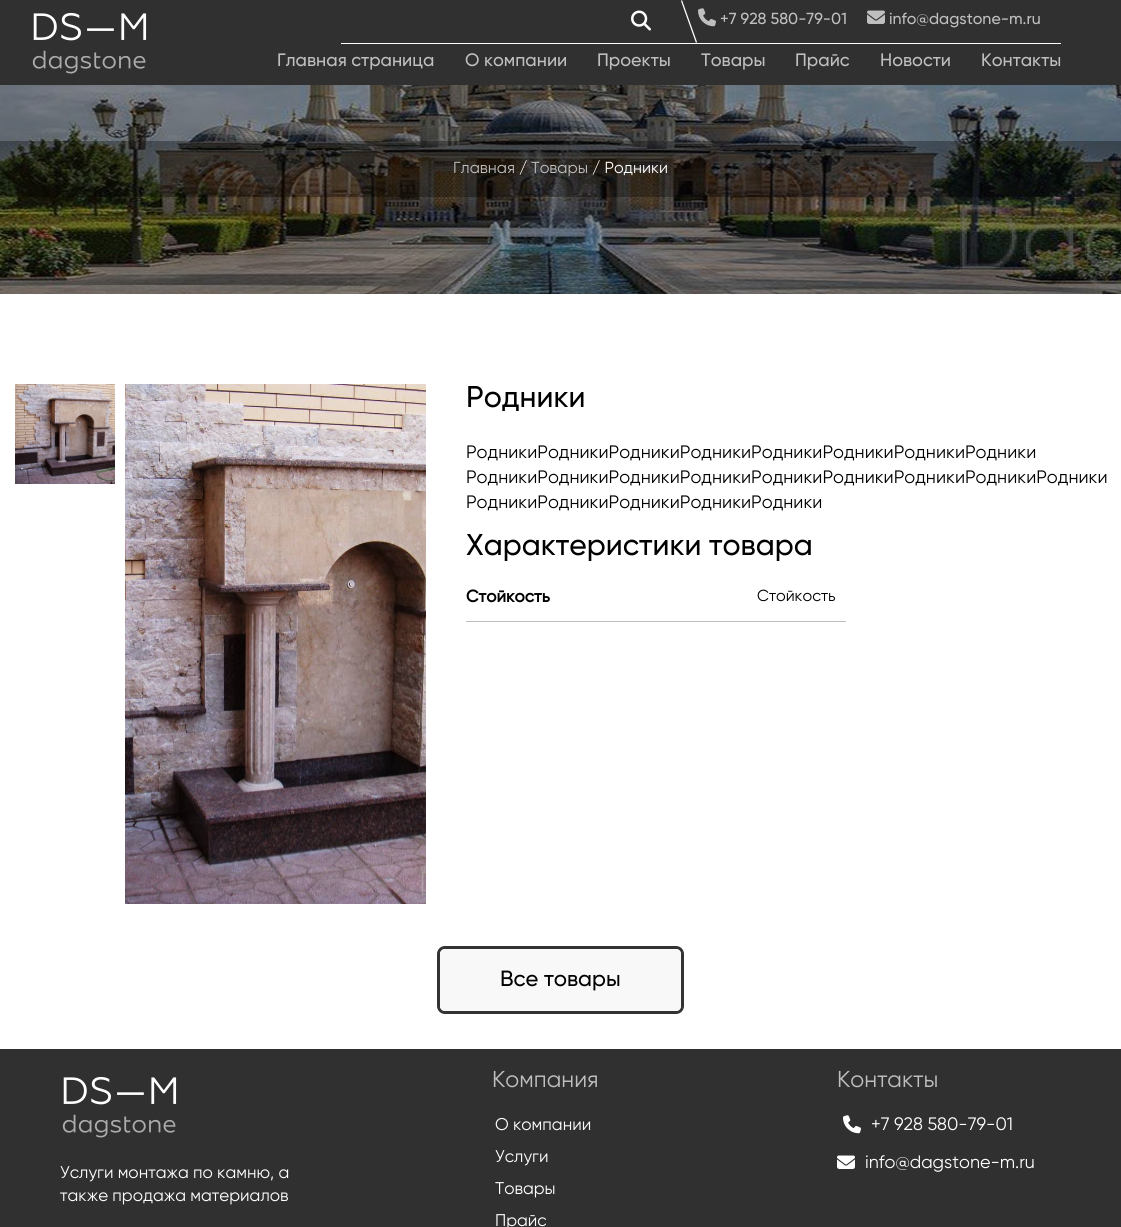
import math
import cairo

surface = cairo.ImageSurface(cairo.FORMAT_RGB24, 1121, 1227)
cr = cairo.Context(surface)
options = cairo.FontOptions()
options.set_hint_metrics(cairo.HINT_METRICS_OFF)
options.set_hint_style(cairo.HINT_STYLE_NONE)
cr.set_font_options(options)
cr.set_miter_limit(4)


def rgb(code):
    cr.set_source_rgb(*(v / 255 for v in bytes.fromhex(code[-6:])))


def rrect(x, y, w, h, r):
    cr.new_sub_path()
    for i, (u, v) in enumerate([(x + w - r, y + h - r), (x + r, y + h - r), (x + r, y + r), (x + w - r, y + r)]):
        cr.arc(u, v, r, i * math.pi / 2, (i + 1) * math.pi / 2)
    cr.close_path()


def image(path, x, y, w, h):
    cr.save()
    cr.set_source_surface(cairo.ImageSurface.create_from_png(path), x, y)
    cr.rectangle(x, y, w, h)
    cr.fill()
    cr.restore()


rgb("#ffffff")
cr.paint()
rgb("#303030")
cr.rectangle(0, 0, 1121, 85)
cr.fill()
image("img/1.png", 32, 12, 115, 62)
rgb("#ffffff")
cr.rectangle(341, 43, 720, 1)
cr.fill()
image("img/2.png", 631, 10, 20, 21)
cr.new_path()
cr.move_to(681, 1)
cr.line_to(682, 0)
cr.line_to(697, 42)
cr.line_to(696, 43)
cr.close_path()
cr.fill()
image("img/3.png", 698, 8, 18, 19)
image("img/4.png", 867, 10, 18, 14)
image("img/5.png", 0, 85, 1121, 209)
cr.set_source_rgba(0, 0, 0, 0.31)
cr.rectangle(0, 141, 1121, 56)
cr.fill()
image("img/6.png", 15, 384, 100, 100)
image("img/7.png", 125, 384, 301, 520)
rgb("#bdbdbd")
cr.rectangle(466, 621, 380, 1)
cr.fill()
rrect(438.5, 947.5, 244, 65, 6.5)
rgb("#333333")
cr.set_line_width(3)
cr.stroke()
rgb("#f8f8f8")
rrect(440, 949, 241, 62, 5)
cr.fill()
rgb("#303030")
cr.rectangle(0, 1049, 1121, 178)
cr.fill()
image("img/8.png", 843, 1115, 18, 19)
image("img/9.png", 837, 1155, 18, 14)
image("img/1.png", 62, 1076, 115, 62)
cr.select_font_face("Gilroy Medium")
cr.set_font_size(16)
rgb("#bfbfbf")
cr.move_to(720, 24)
cr.show_text("+7 928 580-79-01")
cr.move_to(889, 24)
cr.show_text("info@dagstone-m.ru")
cr.set_font_size(18)
for x, y, s in [
    (277, 66, "Главная страница"),
    (465, 66, "О компании"),
    (597, 66, "Проекты"),
    (701, 66, "Товары"),
    (795, 66, "Прайс"),
    (880, 66, "Новости"),
    (981, 66, "Контакты"),
]:
    cr.move_to(x, y)
    cr.show_text(s)
cr.select_font_face("Gilroy")
cr.set_font_size(16)
cr.move_to(453, 173)
cr.show_text("Главная")
rgb("#ffffff")
cr.move_to(519, 173)
cr.show_text("/")
rgb("#bfbfbf")
cr.move_to(531, 173)
cr.show_text("Товары")
rgb("#ffffff")
cr.move_to(592, 173)
cr.show_text("/ Родники")
cr.select_font_face("Gilroy Medium")
cr.set_font_size(30)
rgb("#000000")
cr.move_to(466, 407)
cr.show_text("Родники")
cr.select_font_face("Gilroy")
cr.set_font_size(18)
cr.move_to(466, 458)
cr.show_text("РодникиРодникиРодникиРодникиРодникиРодникиРодникиРодники")
cr.save()
cr.rectangle(466, 441, 640, 76)
cr.clip()
cr.move_to(466, 483)
cr.show_text("РодникиРодникиРодникиРодникиРодникиРодникиРодникиРодникиРодники")
cr.restore()
cr.move_to(466, 508)
cr.show_text("РодникиРодникиРодникиРодникиРодники")
cr.select_font_face("Gilroy Medium")
cr.set_font_size(30)
cr.move_to(466, 555)
cr.show_text("Характеристики товара")
cr.select_font_face("Gilroy", cairo.FONT_SLANT_NORMAL, cairo.FONT_WEIGHT_BOLD)
cr.set_font_size(17)
cr.move_to(466, 602)
cr.show_text("Стойкость")
cr.select_font_face("Gilroy")
cr.set_font_size(16)
cr.move_to(757, 601)
cr.show_text("Стойкость")
cr.select_font_face("Gilroy Medium")
cr.set_font_size(22)
cr.move_to(500, 986)
cr.show_text("Все товары")
cr.select_font_face("Gilroy")
cr.set_font_size(23)
rgb("#bfbfbf")
cr.move_to(492, 1087)
cr.show_text("Компания")
cr.set_font_size(17)
rgb("#ffffff")
for x, y, s in [
    (495, 1130, "О компании"),
    (495, 1162, "Услуги"),
    (495, 1194, "Товары"),
    (495, 1226, "Прайс"),
]:
    cr.move_to(x, y)
    cr.show_text(s)
cr.set_font_size(23)
rgb("#bfbfbf")
cr.move_to(837, 1087)
cr.show_text("Контакты")
cr.set_font_size(18)
rgb("#ffffff")
cr.move_to(871, 1130)
cr.show_text("+7 928 580-79-01")
cr.move_to(865, 1168)
cr.show_text("info@dagstone-m.ru")
cr.set_font_size(17)
cr.move_to(60, 1178)
cr.show_text("Услуги монтажа по камню, а")
cr.move_to(60, 1201)
cr.show_text("также продажа материалов")
surface.write_to_png("page.png")
